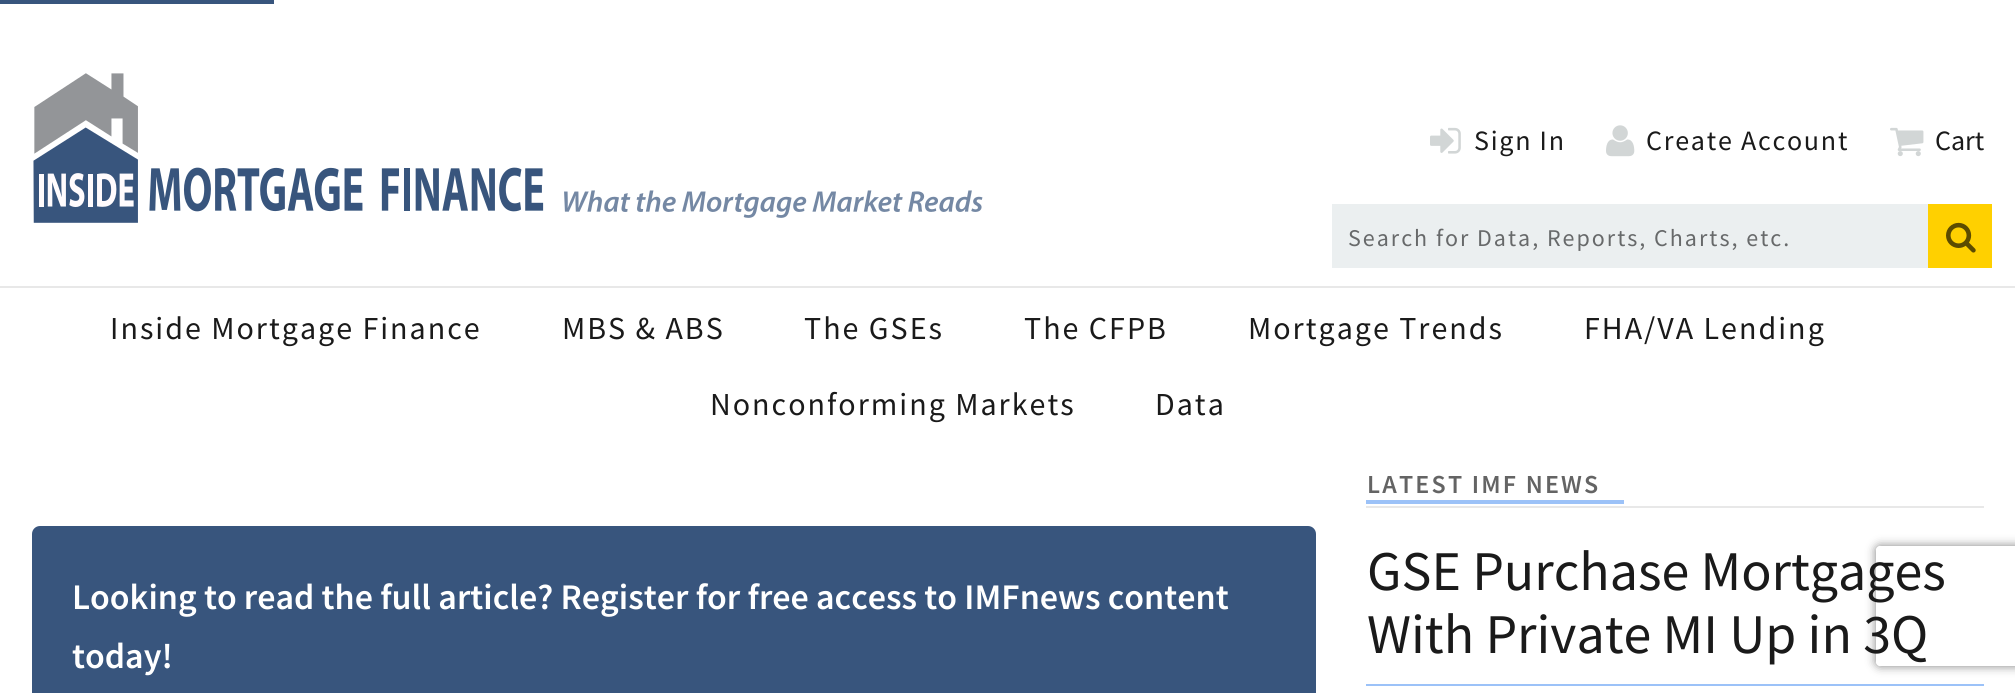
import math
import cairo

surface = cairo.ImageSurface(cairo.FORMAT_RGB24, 2015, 693)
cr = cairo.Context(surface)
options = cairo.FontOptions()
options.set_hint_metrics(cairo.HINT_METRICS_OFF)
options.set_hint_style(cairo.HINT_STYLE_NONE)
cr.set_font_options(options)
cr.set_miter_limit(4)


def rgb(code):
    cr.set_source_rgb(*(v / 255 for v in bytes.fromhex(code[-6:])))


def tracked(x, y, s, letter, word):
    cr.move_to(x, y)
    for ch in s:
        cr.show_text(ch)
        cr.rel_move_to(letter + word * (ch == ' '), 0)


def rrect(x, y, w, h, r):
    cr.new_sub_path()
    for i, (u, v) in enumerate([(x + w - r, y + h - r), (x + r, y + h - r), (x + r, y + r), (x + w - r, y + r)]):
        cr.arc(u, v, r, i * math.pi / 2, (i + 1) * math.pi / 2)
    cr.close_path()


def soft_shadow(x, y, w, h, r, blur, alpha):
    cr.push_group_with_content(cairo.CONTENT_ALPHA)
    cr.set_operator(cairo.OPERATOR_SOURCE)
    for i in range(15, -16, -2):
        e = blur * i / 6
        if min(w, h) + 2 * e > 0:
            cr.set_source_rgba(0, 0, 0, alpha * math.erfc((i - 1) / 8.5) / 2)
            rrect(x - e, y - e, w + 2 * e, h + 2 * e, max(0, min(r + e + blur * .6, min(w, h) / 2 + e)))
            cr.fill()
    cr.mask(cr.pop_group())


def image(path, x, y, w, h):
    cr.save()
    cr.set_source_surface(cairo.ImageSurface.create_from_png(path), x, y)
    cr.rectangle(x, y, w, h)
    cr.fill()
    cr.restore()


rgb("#ffffff")
cr.paint()
rgb("#38557d")
cr.rectangle(0, 0, 274, 4)
cr.fill()
image("img/1.png", 33, 73, 950, 150)
image("img/2.png", 1430, 127, 31, 27)
image("img/3.png", 1606, 125, 29, 32)
image("img/4.png", 1890, 127, 34, 30)
rgb("#ebeff0")
cr.rectangle(1332, 204, 596, 64)
cr.fill()
rgb("#ffd000")
cr.rectangle(1928, 204, 64, 64)
cr.fill()
image("img/5.png", 1946, 222, 30, 31)
rgb("#e8e8e8")
cr.rectangle(0, 286, 2015, 2)
cr.fill()
rgb("#38557d")
rrect(32, 526, 1284, 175, 8)
cr.fill()
for x, y, w, h, color in [
    (1366, 506, 618, 2, "#e8e8e8"),
    (1366, 500, 258, 4, "#9cc2f8"),
    (1366, 684, 618, 2, "#9cc2f8"),
]:
    rgb(color)
    cr.rectangle(x, y, w, h)
    cr.fill()
cr.save()
cr.set_fill_rule(cairo.FILL_RULE_EVEN_ODD)
cr.new_path()
cr.move_to(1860, 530)
cr.line_to(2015, 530)
cr.line_to(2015, 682)
cr.line_to(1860, 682)
cr.close_path()
cr.move_to(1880, 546)
cr.line_to(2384, 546)
cr.curve_to(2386, 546, 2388, 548, 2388, 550)
cr.line_to(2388, 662)
cr.curve_to(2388, 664, 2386, 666, 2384, 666)
cr.line_to(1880, 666)
cr.curve_to(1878, 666, 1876, 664, 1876, 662)
cr.line_to(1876, 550)
cr.curve_to(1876, 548, 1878, 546, 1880, 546)
cr.close_path()
cr.clip()
rgb("#808080")
soft_shadow(1876, 546, 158, 120, 4, 5, 1)
cr.restore()
cr.select_font_face("Source Sans Pro")
cr.set_font_size(28)
rgb("#1a1a1a")
tracked(1474, 150, "Sign In", 1.75, 0)
tracked(1646, 150, "Create Account", 1.75, 0)
cr.move_to(1935, 150)
cr.show_text("Cart")
cr.set_font_size(24)
rgb("#67696a")
tracked(1348, 246, "Search for Data, Reports, Charts, etc.", 2, 0)
cr.set_font_size(32)
rgb("#1a1a1a")
for x, y, s in [
    (110, 339, "Inside Mortgage Finance"),
    (562, 339, "MBS & ABS"),
    (804, 339, "The GSEs"),
    (1024, 339, "The CFPB"),
    (1248, 339, "Mortgage Trends"),
    (1584, 339, "FHA/VA Lending"),
    (710, 415, "Nonconforming Markets"),
    (1155, 415, "Data"),
]:
    tracked(x, y, s, 2, 0)
cr.select_font_face("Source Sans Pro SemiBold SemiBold")
cr.set_font_size(36)
rgb("#ffffff")
cr.move_to(72, 609)
cr.show_text("Looking to read the full article? Register for free access to IMFnews content")
cr.move_to(72, 668)
cr.show_text("today!")
cr.set_font_size(26)
rgb("#646464")
tracked(1367, 493, "LATEST IMF NEWS", 2.2, 0)
cr.select_font_face("Source Sans Pro")
cr.set_font_size(56)
rgb("#1a1a1a")
cr.move_to(1367, 590)
cr.show_text("GSE Purchase Mortgages")
cr.move_to(1367, 653)
cr.show_text("With Private MI Up in 3Q")
surface.write_to_png("page.png")
